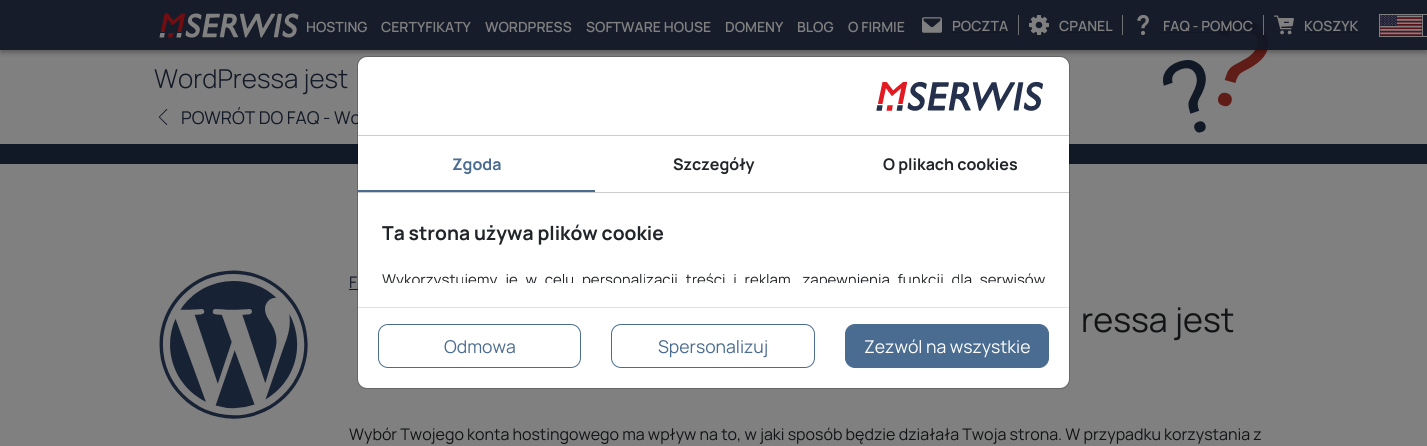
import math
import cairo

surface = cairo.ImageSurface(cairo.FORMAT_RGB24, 1427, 446)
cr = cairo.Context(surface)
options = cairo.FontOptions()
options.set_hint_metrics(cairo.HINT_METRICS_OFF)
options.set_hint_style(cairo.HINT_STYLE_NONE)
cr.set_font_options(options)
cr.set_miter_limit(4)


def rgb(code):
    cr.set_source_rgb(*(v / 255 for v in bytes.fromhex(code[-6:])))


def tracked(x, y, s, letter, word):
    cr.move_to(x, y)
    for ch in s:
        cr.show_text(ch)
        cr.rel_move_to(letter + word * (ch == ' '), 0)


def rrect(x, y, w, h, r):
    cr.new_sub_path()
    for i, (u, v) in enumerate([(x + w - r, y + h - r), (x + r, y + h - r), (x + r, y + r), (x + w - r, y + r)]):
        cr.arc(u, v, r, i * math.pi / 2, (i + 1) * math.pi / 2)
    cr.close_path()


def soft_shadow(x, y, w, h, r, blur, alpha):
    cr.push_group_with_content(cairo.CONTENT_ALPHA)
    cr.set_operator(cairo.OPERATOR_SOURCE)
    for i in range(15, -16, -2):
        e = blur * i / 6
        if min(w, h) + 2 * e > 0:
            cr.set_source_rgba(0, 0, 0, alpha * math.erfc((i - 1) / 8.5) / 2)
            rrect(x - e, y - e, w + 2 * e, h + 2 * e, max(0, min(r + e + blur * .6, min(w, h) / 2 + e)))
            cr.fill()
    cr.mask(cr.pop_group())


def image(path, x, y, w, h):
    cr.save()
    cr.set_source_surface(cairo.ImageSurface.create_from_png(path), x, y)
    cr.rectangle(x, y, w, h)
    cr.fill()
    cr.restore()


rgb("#808080")
cr.paint()
image("img/7.png", 1163, 19, 106, 114)
cr.save()
cr.rectangle(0, 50, 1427, 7)
cr.clip()
rgb("#000000")
soft_shadow(0, 4, 1427, 50, 0, 2.5, 0.14)
cr.restore()
cr.save()
cr.rectangle(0, 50, 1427, 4)
cr.clip()
rgb("#000000")
soft_shadow(1, 3, 1425, 48, 0, 2, 0.2)
cr.restore()
cr.set_source_rgba(0.071, 0.094, 0.149, 0.95)
cr.rectangle(0, 0, 1427, 50)
cr.fill()
image("img/1.png", 159, 13, 140, 25)
image("img/2.png", 922, 17, 20, 16)
rgb("#121826")
cr.rectangle(952, 32, 56, 1)
cr.fill()
rgb("#707173")
cr.rectangle(1018, 15, 1, 20)
cr.fill()
image("img/3.png", 1029, 15, 20, 20)
rgb("#121826")
cr.rectangle(1059, 32, 53, 1)
cr.fill()
rgb("#707173")
cr.rectangle(1122, 15, 1, 20)
cr.fill()
image("img/4.png", 1137, 15, 12, 20)
rgb("#121826")
cr.rectangle(1163, 32, 90, 1)
cr.fill()
cr.set_source_rgba(0.502, 0.502, 0.502, 0.85)
cr.rectangle(1263, 15, 1, 20)
cr.fill()
image("img/5.png", 1274, 15, 20, 20)
rgb("#121826")
cr.rectangle(1304, 32, 55, 1)
cr.fill()
cr.rectangle(1379.5, 14.5, 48, 22)
rgb("#808080")
cr.set_line_width(1)
cr.stroke()
image("img/6.png", 1380, 15, 42, 21)
cr.rectangle(1422, 15, 1, 21)
cr.fill()
rgb("#111826")
cr.rectangle(0, 144, 1427, 20)
cr.fill()
image("img/8.png", 158, 109, 10, 16)
image("img/9.png", 159, 270, 149, 149)
rgb("#121826")
cr.rectangle(349, 289, 9, 1)
cr.fill()
cr.select_font_face("Manrope SemiBold")
cr.set_font_size(14)
rgb("#808080")
for x, y, s in [
    (306, 32, "HOSTING"),
    (381, 32, "CERTYFIKATY"),
    (485, 32, "WORDPRESS"),
    (586, 32, "SOFTWARE HOUSE"),
    (725, 32, "DOMENY"),
    (797, 32, "BLOG"),
    (848, 32, "O FIRMIE"),
    (952, 31, "POCZTA"),
    (1059, 31, "CPANEL"),
    (1163, 31, "FAQ - POMOC"),
    (1304, 31, "KOSZYK"),
]:
    cr.move_to(x, y)
    cr.show_text(s)
cr.select_font_face("Manrope Light")
cr.set_font_size(26)
rgb("#121826")
cr.move_to(154, 88)
cr.show_text("WordPressa jest")
cr.select_font_face("Manrope")
cr.set_font_size(17.6)
cr.move_to(181, 124)
cr.show_text("POWRÓT DO FAQ - Wo")
cr.set_font_size(16)
cr.move_to(349, 288)
cr.show_text("F")
cr.set_font_size(34)
rgb("#111315")
cr.move_to(1081, 332)
cr.show_text("ressa jest")
cr.set_font_size(16)
cr.move_to(349, 440)
cr.show_text("Wybór Twojego konta hostingowego ma wpływ na to, w jaki sposób będzie działała Twoja strona. W przypadku korzystania z")
rgb("#ffffff")
rrect(358, 57, 711, 331, 9)
cr.fill()
rrect(357.5, 56.5, 712, 332, 9.5)
cr.set_source_rgba(0, 0, 0, 0.2)
cr.stroke()
image("img/10.png", 876, 81, 167, 30)
for x, y, w, h, color in [
    (358, 135, 711, 1, "#cccccc"),
    (358, 192, 711, 1, "#cccccc"),
    (358, 190, 237, 2, "#4a6c90"),
]:
    rgb(color)
    cr.rectangle(x, y, w, h)
    cr.fill()
cr.select_font_face("Manrope", cairo.FONT_SLANT_NORMAL, cairo.FONT_WEIGHT_BOLD)
cr.move_to(452, 170)
cr.show_text("Zgoda")
rgb("#212529")
cr.move_to(673, 170)
cr.show_text("Szczegóły")
cr.move_to(883, 170)
cr.show_text("O plikach cookies")
cr.set_font_size(19.25)
cr.move_to(382, 240)
cr.show_text("Ta strona używa plików cookie")
cr.save()
cr.rectangle(382, 217, 675, 66)
cr.clip()
cr.select_font_face("Manrope")
cr.set_font_size(15)
tracked(382, 285, "Wykorzystujemy je w celu personalizacji treści i reklam, zapewnienia funkcji dla serwisów", 0, 4.75)
cr.restore()
rgb("#dee2e6")
cr.rectangle(358, 307, 711, 1)
cr.fill()
rrect(378.5, 324.5, 202, 43, 9.5)
rgb("#4a6c90")
cr.stroke()
cr.select_font_face("Manrope")
cr.set_font_size(17.6)
cr.move_to(444, 353)
cr.show_text("Odmowa")
rrect(611.5, 324.5, 203, 43, 9.5)
cr.stroke()
cr.move_to(658, 353)
cr.show_text("Spersonalizuj")
rrect(845.5, 324.5, 203, 43, 9.5)
cr.fill_preserve()
cr.stroke()
rgb("#ffffff")
cr.move_to(864, 353)
cr.show_text("Zezwól na wszystkie")
surface.write_to_png("page.png")
